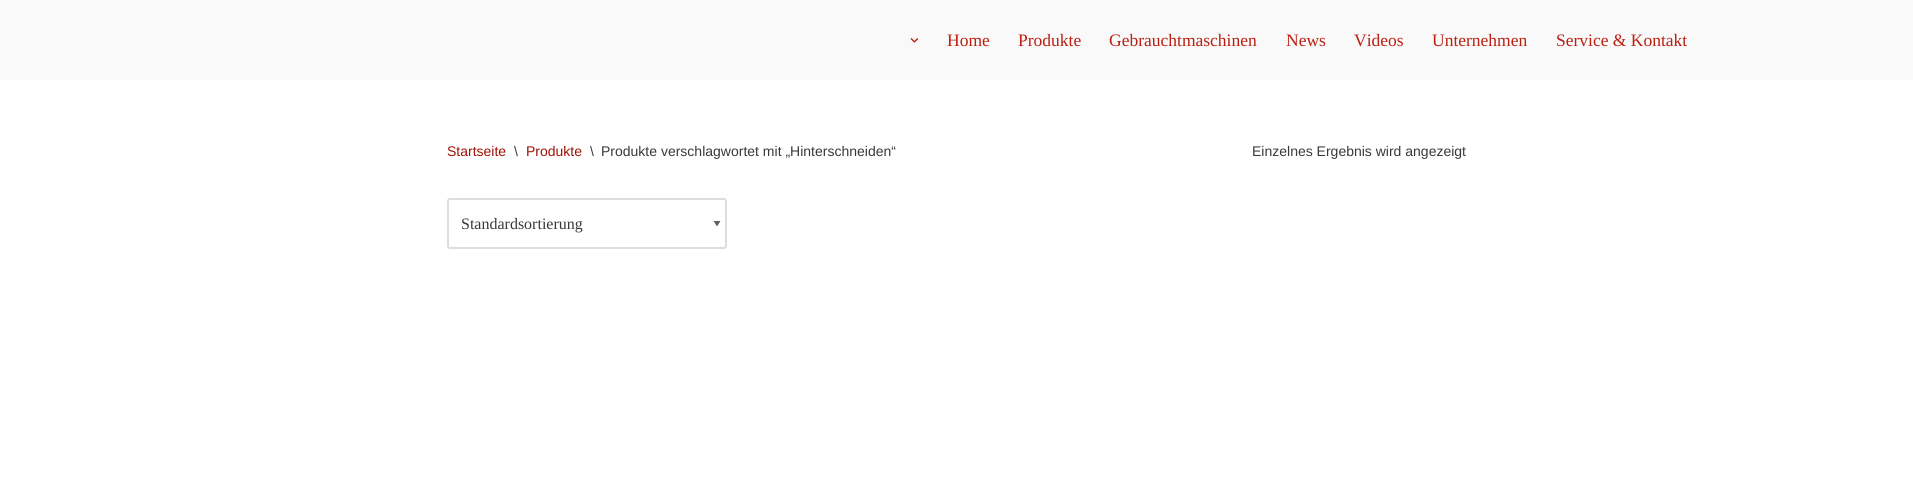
import math
import cairo

surface = cairo.ImageSurface(cairo.FORMAT_RGB24, 1913, 493)
cr = cairo.Context(surface)
options = cairo.FontOptions()
options.set_hint_metrics(cairo.HINT_METRICS_OFF)
options.set_hint_style(cairo.HINT_STYLE_NONE)
cr.set_font_options(options)
cr.set_miter_limit(4)


def rgb(code):
    cr.set_source_rgb(*(v / 255 for v in bytes.fromhex(code[-6:])))


def rrect(x, y, w, h, r):
    cr.new_sub_path()
    for i, (u, v) in enumerate([(x + w - r, y + h - r), (x + r, y + h - r), (x + r, y + r), (x + w - r, y + r)]):
        cr.arc(u, v, r, i * math.pi / 2, (i + 1) * math.pi / 2)
    cr.close_path()


def image(path, x, y, w, h):
    cr.save()
    cr.set_source_surface(cairo.ImageSurface.create_from_png(path), x, y)
    cr.rectangle(x, y, w, h)
    cr.fill()
    cr.restore()


rgb("#ffffff")
cr.paint()
rgb("#f9f9f9")
cr.rectangle(0, 0, 1913, 80)
cr.fill()
image("img/1.png", 910, 38, 9, 5)
rgb("#626262")
cr.new_path()
cr.move_to(720.5, 221)
cr.line_to(717, 226.5)
cr.line_to(713.5, 221)
cr.close_path()
cr.fill()
rrect(448, 199, 278, 49, 2)
rgb("#dddddd")
cr.stroke()
cr.select_font_face("Liberation Serif")
cr.set_font_size(17.5)
rgb("#bb1f10")
for x, y, s in [
    (947, 46, "Home"),
    (1018, 46, "Produkte"),
    (1109, 46, "Gebrauchtmaschinen"),
    (1286, 46, "News"),
    (1354, 46, "Videos"),
    (1432, 46, "Unternehmen"),
    (1556, 46, "Service & Kontakt"),
]:
    cr.move_to(x, y)
    cr.show_text(s)
cr.select_font_face("Liberation Sans")
cr.set_font_size(14)
rgb("#9e1205")
cr.move_to(447, 156)
cr.show_text("Startseite")
rgb("#393939")
cr.move_to(514, 156)
cr.show_text("\\")
rgb("#9e1205")
cr.move_to(526, 156)
cr.show_text("Produkte")
rgb("#393939")
for x, y, s in [
    (590, 156, "\\"),
    (601, 156, "Produkte verschlagwortet mit „Hinterschneiden“"),
    (1252, 156, "Einzelnes Ergebnis wird angezeigt"),
]:
    cr.move_to(x, y)
    cr.show_text(s)
cr.select_font_face("Liberation Serif")
cr.set_font_size(16)
cr.move_to(461, 229)
cr.show_text("Standardsortierung")
surface.write_to_png("page.png")
